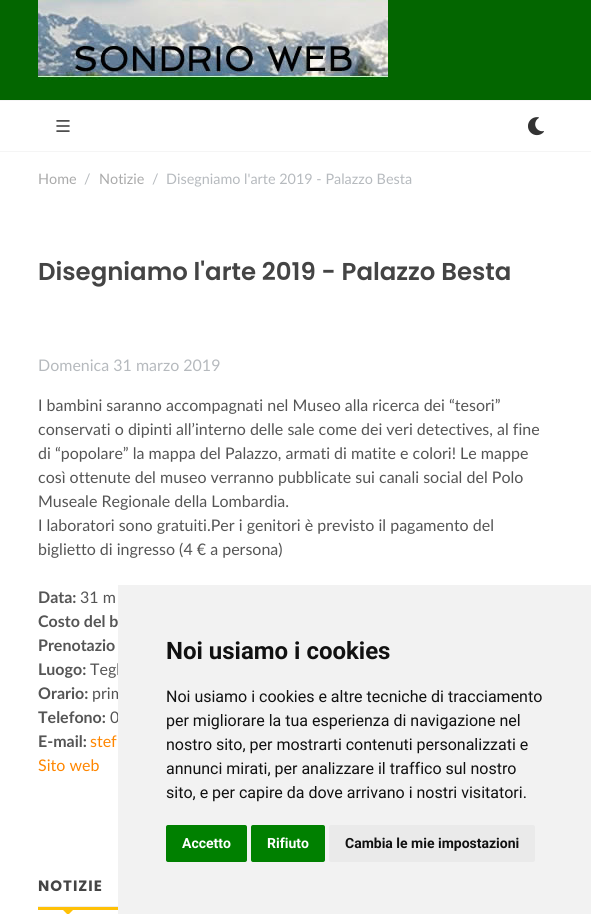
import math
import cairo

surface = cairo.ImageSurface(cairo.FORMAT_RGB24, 591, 914)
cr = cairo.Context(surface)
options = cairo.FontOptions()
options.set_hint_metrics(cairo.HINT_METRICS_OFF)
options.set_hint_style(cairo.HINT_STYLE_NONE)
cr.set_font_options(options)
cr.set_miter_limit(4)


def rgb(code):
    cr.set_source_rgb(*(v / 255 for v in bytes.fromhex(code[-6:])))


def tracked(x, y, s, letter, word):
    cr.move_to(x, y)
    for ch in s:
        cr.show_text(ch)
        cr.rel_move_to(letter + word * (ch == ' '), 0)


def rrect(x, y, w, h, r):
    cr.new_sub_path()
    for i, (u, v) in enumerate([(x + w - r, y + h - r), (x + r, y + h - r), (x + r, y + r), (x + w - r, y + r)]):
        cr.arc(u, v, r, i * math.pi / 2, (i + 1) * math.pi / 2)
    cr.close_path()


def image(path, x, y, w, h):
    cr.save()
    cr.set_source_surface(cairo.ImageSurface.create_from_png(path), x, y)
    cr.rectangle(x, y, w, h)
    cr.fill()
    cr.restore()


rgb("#ffffff")
cr.paint()
rgb("#f5f5f5")
cr.rectangle(0, 151, 591, 1)
cr.fill()
rgb("#036600")
cr.rectangle(0, 0, 591, 100)
cr.fill()
image("img/1.png", 38, 0, 350, 80)
rgb("#f5f5f5")
cr.rectangle(0, 100, 591, 1)
cr.fill()
image("img/2.png", 56, 120, 14, 12)
image("img/3.png", 528, 117, 16, 19)
rgb("#eeeeee")
cr.rectangle(38, 906, 80, 1)
cr.fill()
rgb("#ffc107")
cr.rectangle(38, 907, 80, 3)
cr.fill()
cr.new_path()
cr.move_to(60, 907)
cr.line_to(76, 907)
cr.line_to(68, 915)
cr.close_path()
cr.fill()
cr.select_font_face("Lato")
cr.set_font_size(14.4)
rgb("#aaaaaa")
cr.move_to(38, 184)
cr.show_text("Home")
rgb("#b6babe")
cr.move_to(84, 184)
cr.show_text("/")
rgb("#aaaaaa")
cr.move_to(99, 184)
cr.show_text("Notizie")
rgb("#b6babe")
cr.move_to(152, 184)
cr.show_text("/")
cr.move_to(166, 184)
cr.show_text("Disegniamo l'arte 2019 - Palazzo Besta")
cr.select_font_face("Poppins SemiBold")
cr.set_font_size(24.4)
rgb("#444444")
cr.move_to(38, 280)
cr.show_text("Disegniamo l'arte 2019 - Palazzo Besta")
cr.select_font_face("Lato")
cr.set_font_size(16)
rgb("#b6babe")
cr.move_to(38, 371)
cr.show_text("Domenica 31 marzo 2019")
rgb("#555555")
for x, y, s in [
    (38, 411, "I bambini saranno accompagnati nel Museo alla ricerca dei “tesori”"),
    (38, 435, "conservati o dipinti all’interno delle sale come dei veri detectives, al fine"),
    (38, 459, "di “popolare” la mappa del Palazzo, armati di matite e colori! Le mappe"),
    (38, 483, "così ottenute del museo verranno pubblicate sui canali social del Polo"),
    (38, 507, "Museale Regionale della Lombardia."),
    (38, 531, "I laboratori sono gratuiti.Per i genitori è previsto il pagamento del"),
    (38, 555, "biglietto di ingresso (4 € a persona)"),
]:
    cr.move_to(x, y)
    cr.show_text(s)
cr.select_font_face("Lato", cairo.FONT_SLANT_NORMAL, cairo.FONT_WEIGHT_BOLD)
cr.move_to(38, 603)
cr.show_text("Data:")
cr.select_font_face("Lato")
cr.move_to(80, 603)
cr.show_text("31 m")
cr.select_font_face("Lato", cairo.FONT_SLANT_NORMAL, cairo.FONT_WEIGHT_BOLD)
for x, y, s in [
    (38, 627, "Costo del b"),
    (38, 651, "Prenotazio"),
    (38, 675, "Luogo:"),
]:
    cr.move_to(x, y)
    cr.show_text(s)
cr.select_font_face("Lato")
cr.move_to(90, 675)
cr.show_text("Tegl")
cr.select_font_face("Lato", cairo.FONT_SLANT_NORMAL, cairo.FONT_WEIGHT_BOLD)
cr.move_to(38, 699)
cr.show_text("Orario:")
cr.select_font_face("Lato")
cr.move_to(92, 699)
cr.show_text("prim")
cr.select_font_face("Lato", cairo.FONT_SLANT_NORMAL, cairo.FONT_WEIGHT_BOLD)
cr.move_to(38, 723)
cr.show_text("Telefono:")
cr.select_font_face("Lato")
cr.move_to(110, 723)
cr.show_text("0")
cr.select_font_face("Lato", cairo.FONT_SLANT_NORMAL, cairo.FONT_WEIGHT_BOLD)
cr.move_to(38, 747)
cr.show_text("E-mail:")
cr.select_font_face("Lato")
rgb("#ff8600")
cr.move_to(90, 747)
cr.show_text("stef")
cr.move_to(38, 771)
cr.show_text("Sito web")
cr.select_font_face("Poppins", cairo.FONT_SLANT_NORMAL, cairo.FONT_WEIGHT_BOLD)
cr.set_font_size(15)
rgb("#444444")
tracked(38, 891, "NOTIZIE", 1, 0)
rgb("#f2f2f2")
cr.rectangle(118, 585, 473, 329)
cr.fill()
cr.select_font_face("Roboto", cairo.FONT_SLANT_NORMAL, cairo.FONT_WEIGHT_BOLD)
cr.set_font_size(24)
rgb("#111111")
cr.move_to(166, 659)
cr.show_text("Noi usiamo i cookies")
cr.select_font_face("Roboto")
cr.set_font_size(16)
for x, y, s in [
    (166, 702, "Noi usiamo i cookies e altre tecniche di tracciamento"),
    (166, 726, "per migliorare la tua esperienza di navigazione nel"),
    (166, 750, "nostro sito, per mostrarti contenuti personalizzati e"),
    (166, 774, "annunci mirati, per analizzare il traffico sul nostro"),
    (166, 798, "sito, e per capire da dove arrivano i nostri visitatori."),
]:
    cr.move_to(x, y)
    cr.show_text(s)
rgb("#008000")
rrect(166, 825, 81, 37, 2)
cr.fill()
cr.select_font_face("Roboto", cairo.FONT_SLANT_NORMAL, cairo.FONT_WEIGHT_BOLD)
cr.set_font_size(14)
rgb("#ffffff")
cr.move_to(182, 848)
cr.show_text("Accetto")
rgb("#008000")
rrect(251, 825, 74, 37, 2)
cr.fill()
rgb("#ffffff")
cr.move_to(267, 848)
cr.show_text("Rifiuto")
rgb("#eaeaea")
rrect(329, 825, 206, 37, 2)
cr.fill()
rgb("#111111")
cr.move_to(345, 848)
cr.show_text("Cambia le mie impostazioni")
surface.write_to_png("page.png")
